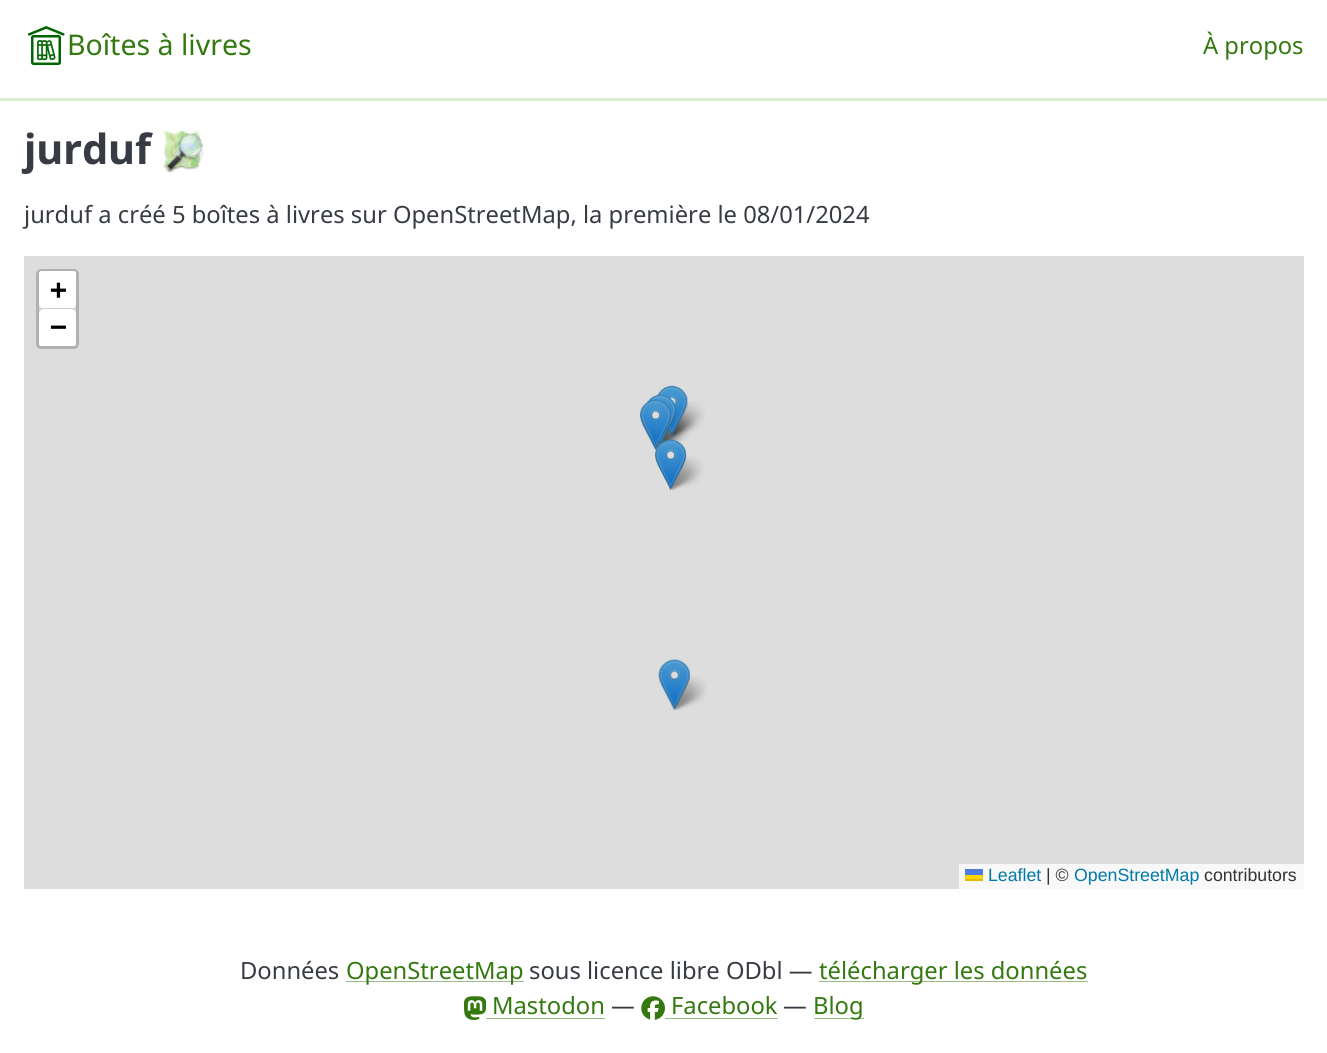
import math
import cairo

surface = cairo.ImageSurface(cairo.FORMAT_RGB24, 1327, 1053)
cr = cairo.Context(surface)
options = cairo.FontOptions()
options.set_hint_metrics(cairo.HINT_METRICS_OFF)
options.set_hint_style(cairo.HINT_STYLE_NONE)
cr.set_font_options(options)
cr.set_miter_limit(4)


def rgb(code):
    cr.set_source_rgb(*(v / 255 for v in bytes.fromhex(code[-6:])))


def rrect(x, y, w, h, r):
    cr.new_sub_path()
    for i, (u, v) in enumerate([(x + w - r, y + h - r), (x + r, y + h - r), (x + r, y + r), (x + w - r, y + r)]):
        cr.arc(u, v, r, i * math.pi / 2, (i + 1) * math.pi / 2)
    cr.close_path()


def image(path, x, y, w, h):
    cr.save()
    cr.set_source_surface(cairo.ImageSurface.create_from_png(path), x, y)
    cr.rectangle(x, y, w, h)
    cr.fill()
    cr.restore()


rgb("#ffffff")
cr.paint()
rgb("#d9eed3")
cr.rectangle(0, 98, 1327, 3)
cr.fill()
image("img/1.png", 27, 26, 38, 39)
image("img/2.png", 163, 131, 41, 42)
rgb("#dddddd")
cr.rectangle(24, 256, 1280, 633)
cr.fill()
rrect(37.5, 270.5, 40, 77, 3.5)
rgb("#b1b1b1")
cr.set_line_width(3)
cr.stroke()
rgb("#ffffff")
cr.new_path()
cr.move_to(41.5, 271)
cr.line_to(73.5, 271)
cr.curve_to(75, 271, 76, 272, 76, 273.5)
cr.line_to(76, 303)
cr.curve_to(76, 306.5, 73.5, 309, 70, 309)
cr.line_to(45, 309)
cr.curve_to(41.5, 309, 39, 306.5, 39, 303)
cr.line_to(39, 273.5)
cr.curve_to(39, 272, 40, 271, 41.5, 271)
cr.close_path()
cr.fill()
rgb("#cccccc")
cr.rectangle(41, 308, 33, 1)
cr.fill()
rgb("#ffffff")
cr.new_path()
cr.move_to(45, 309)
cr.line_to(70, 309)
cr.curve_to(73.5, 309, 76, 311.5, 76, 315)
cr.line_to(76, 343.5)
cr.curve_to(76, 345, 75, 346, 73.5, 346)
cr.line_to(41.5, 346)
cr.curve_to(40, 346, 39, 345, 39, 343.5)
cr.line_to(39, 315)
cr.curve_to(39, 311.5, 41.5, 309, 45, 309)
cr.close_path()
cr.fill()
for x, y, w, h, color in [
    (959, 864, 345, 25, "#f8f8f8"),
    (965, 869, 18, 6, "#4c7be1"),
    (965, 875, 18, 4, "#ffd500"),
    (965, 879, 18, 2, "#e0bc00"),
]:
    rgb(color)
    cr.rectangle(x, y, w, h)
    cr.fill()
image("img/10.png", 652, 418, 37, 33)
image("img/9.png", 659, 412, 35, 33)
image("img/8.png", 668, 401, 37, 36)
image("img/3.png", 657, 385, 31, 51)
image("img/4.png", 645, 394, 31, 51)
image("img/5.png", 640, 399, 31, 51)
image("img/11.png", 667, 455, 37, 36)
image("img/6.png", 655, 439, 32, 51)
image("img/12.png", 671, 675, 36, 36)
image("img/7.png", 658, 658, 33, 52)
rgb("#99bc87")
cr.rectangle(346, 981, 178, 1)
cr.fill()
cr.rectangle(819, 981, 269, 1)
cr.fill()
image("img/13.png", 464, 996, 22, 24)
cr.rectangle(486, 1018, 119, 1)
cr.fill()
image("img/14.png", 641, 996, 24, 24)
cr.rectangle(665, 1018, 113, 1)
cr.fill()
cr.rectangle(814, 1018, 50, 1)
cr.fill()
cr.select_font_face("Noto Sans")
cr.set_font_size(28.5)
rgb("#33790f")
cr.move_to(67, 55)
cr.show_text("Boîtes à livres")
cr.set_font_size(23.75)
cr.move_to(1203, 54)
cr.show_text("À propos")
cr.select_font_face("Noto Sans", cairo.FONT_SLANT_NORMAL, cairo.FONT_WEIGHT_BOLD)
cr.set_font_size(41.5)
rgb("#373c44")
cr.move_to(24, 164)
cr.show_text("jurduf")
cr.select_font_face("Noto Sans")
cr.set_font_size(23.75)
cr.move_to(24, 223)
cr.show_text("jurduf a créé 5 boîtes à livres sur OpenStreetMap, la première le 08/01/2024")
cr.select_font_face("DejaVu Sans Mono", cairo.FONT_SLANT_NORMAL, cairo.FONT_WEIGHT_BOLD)
cr.set_font_size(28)
rgb("#000000")
cr.move_to(50, 299)
cr.show_text("+")
cr.move_to(50, 336)
cr.show_text("−")
cr.select_font_face("Liberation Sans")
cr.set_font_size(17.75)
rgb("#0078a8")
cr.move_to(988, 881)
cr.show_text("Leaflet")
rgb("#333333")
cr.move_to(1046, 881)
cr.show_text("| ©")
rgb("#0078a8")
cr.move_to(1074, 881)
cr.show_text("OpenStreetMap")
rgb("#333333")
cr.move_to(1204, 881)
cr.show_text("contributors")
cr.select_font_face("Noto Sans")
cr.set_font_size(23.75)
rgb("#373c44")
cr.move_to(240, 979)
cr.show_text("Données")
rgb("#33790f")
cr.move_to(346, 979)
cr.show_text("OpenStreetMap")
rgb("#373c44")
cr.move_to(529, 979)
cr.show_text("sous licence libre ODbl —")
rgb("#33790f")
cr.move_to(819, 979)
cr.show_text("télécharger les données")
cr.move_to(492, 1014)
cr.show_text("Mastodon")
rgb("#373c44")
cr.move_to(611, 1014)
cr.show_text("—")
rgb("#33790f")
cr.move_to(671, 1014)
cr.show_text("Facebook")
rgb("#373c44")
cr.move_to(783, 1014)
cr.show_text("—")
rgb("#33790f")
cr.move_to(813, 1014)
cr.show_text("Blog")
surface.write_to_png("page.png")
